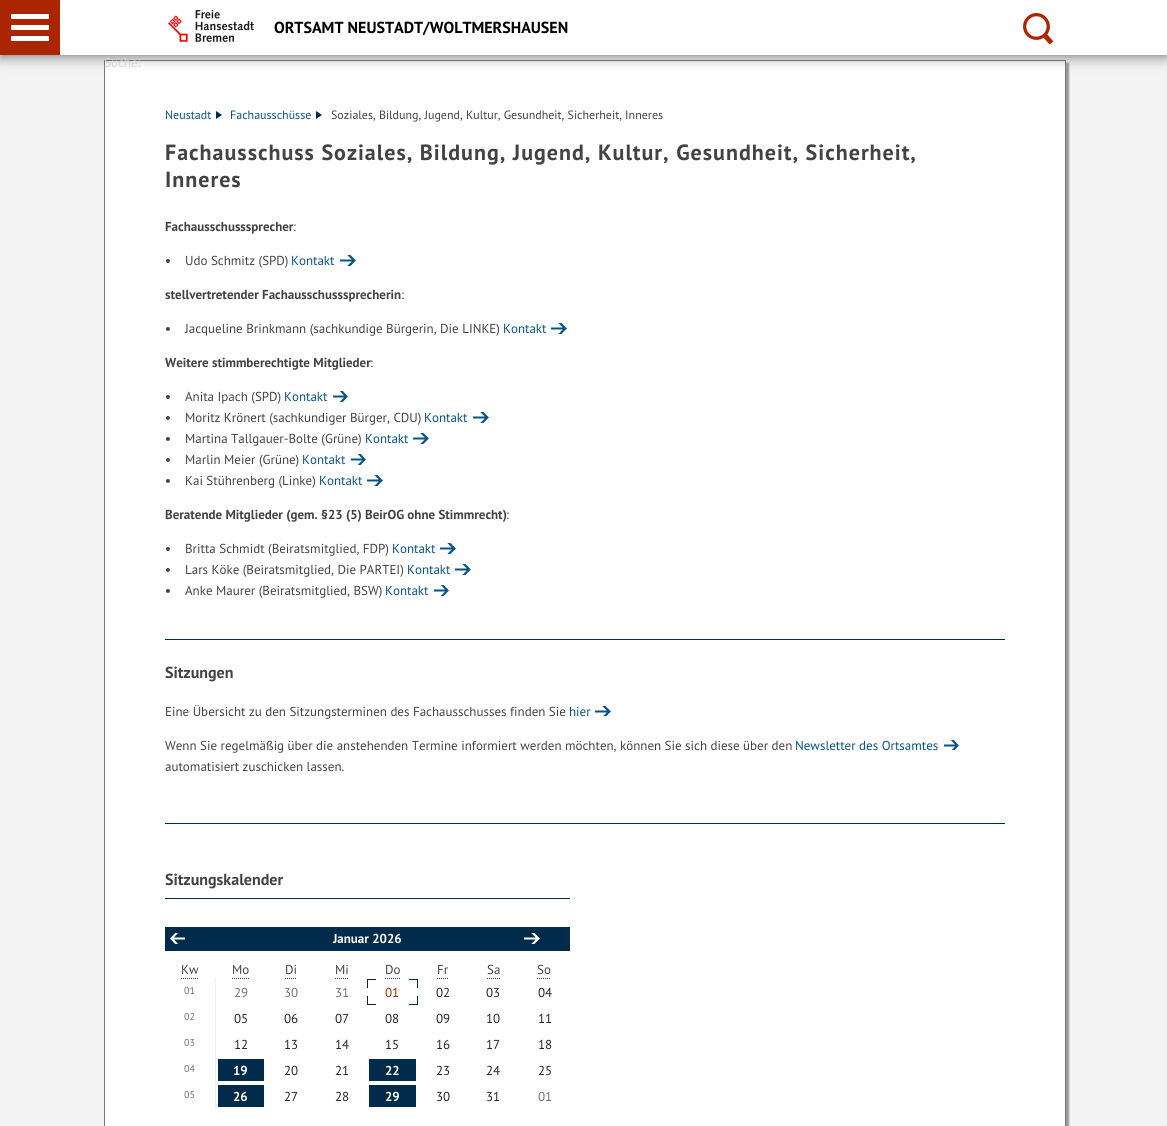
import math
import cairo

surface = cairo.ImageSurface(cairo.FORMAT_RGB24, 1167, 1126)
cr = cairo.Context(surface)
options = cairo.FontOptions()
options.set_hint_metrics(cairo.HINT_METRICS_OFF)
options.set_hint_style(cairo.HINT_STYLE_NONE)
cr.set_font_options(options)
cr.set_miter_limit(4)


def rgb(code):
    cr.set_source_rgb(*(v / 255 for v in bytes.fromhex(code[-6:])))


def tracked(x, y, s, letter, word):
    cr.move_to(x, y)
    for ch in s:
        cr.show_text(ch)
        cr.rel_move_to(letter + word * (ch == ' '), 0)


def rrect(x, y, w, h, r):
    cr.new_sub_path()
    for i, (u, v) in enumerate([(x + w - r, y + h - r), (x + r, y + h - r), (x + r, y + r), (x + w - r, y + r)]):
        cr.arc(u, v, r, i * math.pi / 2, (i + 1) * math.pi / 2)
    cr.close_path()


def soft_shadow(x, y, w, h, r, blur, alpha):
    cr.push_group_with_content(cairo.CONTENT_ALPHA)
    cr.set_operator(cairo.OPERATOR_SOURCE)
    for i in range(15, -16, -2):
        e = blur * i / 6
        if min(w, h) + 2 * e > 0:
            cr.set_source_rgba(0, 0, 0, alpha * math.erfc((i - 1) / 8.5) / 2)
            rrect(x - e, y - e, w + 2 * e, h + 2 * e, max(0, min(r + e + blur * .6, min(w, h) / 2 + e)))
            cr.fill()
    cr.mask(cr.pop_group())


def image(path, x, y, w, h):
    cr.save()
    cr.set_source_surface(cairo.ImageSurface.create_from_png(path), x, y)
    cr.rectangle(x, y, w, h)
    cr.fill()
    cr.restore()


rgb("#f3f3f3")
cr.paint()
rgb("#323232")
soft_shadow(107, 63, 962, 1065, 0, 0.5, 0.45)
rgb("#ffffff")
cr.rectangle(104.5, 60.5, 961, 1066)
cr.fill_preserve()
rgb("#777777")
cr.set_line_width(1)
cr.stroke()
rgb("#646464")
soft_shadow(0, 2, 1167, 55, 0, 6.5, 0.8)
rgb("#ab2600")
cr.rectangle(0, 0, 60, 55)
cr.fill()
rgb("#ffffff")
rrect(11, 14, 38, 5, 1)
cr.fill()
rrect(11, 25, 38, 5, 1)
cr.fill()
rrect(11, 36, 38, 5, 1)
cr.fill()
cr.rectangle(60, 0, 1107, 55)
cr.fill()
image("img/1.png", 168, 10, 86, 32)
image("img/2.png", 1023, 13, 31, 32)
rgb("#002b4b")
cr.new_path()
cr.move_to(216, 119)
cr.line_to(216, 111)
cr.line_to(222, 115)
cr.close_path()
cr.fill()
cr.new_path()
cr.move_to(316, 119)
cr.line_to(316, 111)
cr.line_to(322, 115)
cr.close_path()
cr.fill()
image("img/3.png", 340, 255, 16, 11)
image("img/3.png", 551, 323, 16, 11)
image("img/4.png", 333, 391, 15, 11)
image("img/3.png", 473, 412, 16, 11)
image("img/3.png", 413, 433, 16, 11)
image("img/4.png", 351, 454, 15, 11)
image("img/3.png", 367, 475, 16, 11)
image("img/3.png", 440, 543, 16, 11)
image("img/3.png", 455, 564, 16, 11)
image("img/4.png", 434, 585, 15, 11)
cr.rectangle(165, 639, 840, 1)
cr.fill()
image("img/5.png", 595, 706, 16, 10)
image("img/6.png", 944, 740, 15, 10)
for x, y, w, h, color in [
    (165, 823, 840, 1, "#002b4b"),
    (165, 898, 405, 1, "#002b4b"),
    (165, 927, 405, 24, "#002b4b"),
]:
    rgb(color)
    cr.rectangle(x, y, w, h)
    cr.fill()
image("img/7.png", 170, 933, 15, 11)
image("img/8.png", 524, 933, 16, 11)
cr.new_path()
cr.move_to(181, 978.5)
cr.line_to(199, 978.5)
rgb("#434345")
cr.set_dash([1, 1])
cr.stroke()
cr.new_path()
cr.move_to(232, 978.5)
cr.line_to(249, 978.5)
cr.stroke()
cr.new_path()
cr.move_to(285, 978.5)
cr.line_to(297, 978.5)
cr.stroke()
cr.new_path()
cr.move_to(335, 978.5)
cr.line_to(349, 978.5)
cr.stroke()
cr.new_path()
cr.move_to(385, 978.5)
cr.line_to(400, 978.5)
cr.stroke()
cr.new_path()
cr.move_to(437, 978.5)
cr.line_to(449, 978.5)
cr.stroke()
cr.new_path()
cr.move_to(487, 978.5)
cr.line_to(500, 978.5)
cr.stroke()
cr.new_path()
cr.move_to(537, 978.5)
cr.line_to(551, 978.5)
cr.stroke()
for x, y, w, h, color in [
    (367, 979, 9, 1, "#002b4b"),
    (367, 979, 1, 9, "#002b4b"),
    (409, 979, 9, 1, "#002b4b"),
    (417, 979, 1, 9, "#002b4b"),
    (417, 996, 1, 9, "#002b4b"),
    (409, 1004, 9, 1, "#002b4b"),
    (367, 1004, 9, 1, "#002b4b"),
    (367, 996, 1, 9, "#002b4b"),
    (218, 1059, 46, 22, "#002b4b"),
    (369, 1059, 47, 22, "#002b4b"),
    (215, 978, 1, 131, "#f2f0ef"),
    (218, 1085, 46, 22, "#002b4b"),
    (369, 1085, 47, 22, "#002b4b"),
]:
    rgb(color)
    cr.rectangle(x, y, w, h)
    cr.fill()
cr.select_font_face("PT Sans", cairo.FONT_SLANT_NORMAL, cairo.FONT_WEIGHT_BOLD)
cr.set_font_size(16)
rgb("#000000")
cr.move_to(274, 33)
cr.show_text("ORTSAMT NEUSTADT/WOLTMERSHAUSEN")
cr.select_font_face("PT Sans")
cr.set_font_size(13)
rgb("#d8d8d8")
cr.move_to(104, 67)
cr.show_text("Suche:")
cr.set_font_size(12)
rgb("#085488")
cr.move_to(165, 119)
cr.show_text("Neustadt")
cr.move_to(230, 119)
cr.show_text("Fachausschüsse")
rgb("#434345")
cr.move_to(331, 119)
cr.show_text("Soziales, Bildung, Jugend, Kultur, Gesundheit, Sicherheit, Inneres")
cr.select_font_face("PT Sans", cairo.FONT_SLANT_NORMAL, cairo.FONT_WEIGHT_BOLD)
cr.set_font_size(22)
tracked(165, 160, "Fachausschuss Soziales, Bildung, Jugend, Kultur, Gesundheit, Sicherheit,", 1, 0)
tracked(165, 187, "Inneres", 1, 0)
cr.set_font_size(13)
cr.move_to(165, 231)
cr.show_text("Fachausschusssprecher")
cr.select_font_face("PT Sans")
cr.move_to(293, 231)
cr.show_text(":")
cr.select_font_face("PT Sans", cairo.FONT_SLANT_NORMAL, cairo.FONT_WEIGHT_BOLD)
cr.move_to(165, 265)
cr.show_text("•")
cr.select_font_face("PT Sans")
cr.move_to(185, 265)
cr.show_text("Udo Schmitz (SPD)")
rgb("#085488")
cr.move_to(291, 265)
cr.show_text("Kontakt")
cr.select_font_face("PT Sans", cairo.FONT_SLANT_NORMAL, cairo.FONT_WEIGHT_BOLD)
rgb("#434345")
cr.move_to(165, 299)
cr.show_text("stellvertretender Fachausschusssprecherin")
cr.select_font_face("PT Sans")
cr.move_to(401, 299)
cr.show_text(":")
cr.select_font_face("PT Sans", cairo.FONT_SLANT_NORMAL, cairo.FONT_WEIGHT_BOLD)
cr.move_to(165, 333)
cr.show_text("•")
cr.select_font_face("PT Sans")
cr.move_to(185, 333)
cr.show_text("Jacqueline Brinkmann (sachkundige Bürgerin, Die LINKE)")
rgb("#085488")
cr.move_to(503, 333)
cr.show_text("Kontakt")
cr.select_font_face("PT Sans", cairo.FONT_SLANT_NORMAL, cairo.FONT_WEIGHT_BOLD)
rgb("#434345")
cr.move_to(165, 367)
cr.show_text("Weitere stimmberechtigte Mitglieder")
cr.select_font_face("PT Sans")
cr.move_to(370, 367)
cr.show_text(":")
cr.select_font_face("PT Sans", cairo.FONT_SLANT_NORMAL, cairo.FONT_WEIGHT_BOLD)
cr.move_to(165, 401)
cr.show_text("•")
cr.select_font_face("PT Sans")
cr.move_to(185, 401)
cr.show_text("Anita Ipach (SPD)")
rgb("#085488")
cr.move_to(284, 401)
cr.show_text("Kontakt")
cr.select_font_face("PT Sans", cairo.FONT_SLANT_NORMAL, cairo.FONT_WEIGHT_BOLD)
rgb("#434345")
cr.move_to(165, 422)
cr.show_text("•")
cr.select_font_face("PT Sans")
cr.move_to(185, 422)
cr.show_text("Moritz Krönert (sachkundiger Bürger, CDU)")
rgb("#085488")
cr.move_to(424, 422)
cr.show_text("Kontakt")
cr.select_font_face("PT Sans", cairo.FONT_SLANT_NORMAL, cairo.FONT_WEIGHT_BOLD)
rgb("#434345")
cr.move_to(165, 443)
cr.show_text("•")
cr.select_font_face("PT Sans")
cr.move_to(185, 443)
cr.show_text("Martina Tallgauer-Bolte (Grüne)")
rgb("#085488")
cr.move_to(365, 443)
cr.show_text("Kontakt")
cr.select_font_face("PT Sans", cairo.FONT_SLANT_NORMAL, cairo.FONT_WEIGHT_BOLD)
rgb("#434345")
cr.move_to(165, 464)
cr.show_text("•")
cr.select_font_face("PT Sans")
cr.move_to(185, 464)
cr.show_text("Marlin Meier (Grüne)")
rgb("#085488")
cr.move_to(302, 464)
cr.show_text("Kontakt")
cr.select_font_face("PT Sans", cairo.FONT_SLANT_NORMAL, cairo.FONT_WEIGHT_BOLD)
rgb("#434345")
cr.move_to(165, 485)
cr.show_text("•")
cr.select_font_face("PT Sans")
cr.move_to(185, 485)
cr.show_text("Kai Stührenberg (Linke)")
rgb("#085488")
cr.move_to(319, 485)
cr.show_text("Kontakt")
cr.select_font_face("PT Sans", cairo.FONT_SLANT_NORMAL, cairo.FONT_WEIGHT_BOLD)
rgb("#434345")
cr.move_to(165, 519)
cr.show_text("Beratende Mitglieder (gem. §23 (5) BeirOG ohne Stimmrecht)")
cr.select_font_face("PT Sans")
cr.move_to(506, 519)
cr.show_text(":")
cr.select_font_face("PT Sans", cairo.FONT_SLANT_NORMAL, cairo.FONT_WEIGHT_BOLD)
cr.move_to(165, 553)
cr.show_text("•")
cr.select_font_face("PT Sans")
cr.move_to(185, 553)
cr.show_text("Britta Schmidt (Beiratsmitglied, FDP)")
rgb("#085488")
cr.move_to(392, 553)
cr.show_text("Kontakt")
cr.select_font_face("PT Sans", cairo.FONT_SLANT_NORMAL, cairo.FONT_WEIGHT_BOLD)
rgb("#434345")
cr.move_to(165, 574)
cr.show_text("•")
cr.select_font_face("PT Sans")
cr.move_to(185, 574)
cr.show_text("Lars Köke (Beiratsmitglied, Die PARTEI)")
rgb("#085488")
cr.move_to(407, 574)
cr.show_text("Kontakt")
cr.select_font_face("PT Sans", cairo.FONT_SLANT_NORMAL, cairo.FONT_WEIGHT_BOLD)
rgb("#434345")
cr.move_to(165, 595)
cr.show_text("•")
cr.select_font_face("PT Sans")
cr.move_to(185, 595)
cr.show_text("Anke Maurer (Beiratsmitglied, BSW)")
rgb("#085488")
cr.move_to(385, 595)
cr.show_text("Kontakt")
cr.select_font_face("PT Sans", cairo.FONT_SLANT_NORMAL, cairo.FONT_WEIGHT_BOLD)
cr.set_font_size(16)
rgb("#434345")
cr.move_to(165, 678)
cr.show_text("Sitzungen")
cr.select_font_face("PT Sans")
cr.set_font_size(13)
cr.move_to(165, 716)
cr.show_text("Eine Übersicht zu den Sitzungsterminen des Fachausschusses finden Sie")
rgb("#085488")
cr.move_to(569, 716)
cr.show_text("hier")
rgb("#434345")
cr.move_to(165, 750)
cr.show_text("Wenn Sie regelmäßig über die anstehenden Termine informiert werden möchten, können Sie sich diese über den")
rgb("#085488")
cr.move_to(795, 750)
cr.show_text("Newsletter des Ortsamtes")
rgb("#434345")
cr.move_to(165, 771)
cr.show_text("automatisiert zuschicken lassen.")
cr.select_font_face("PT Sans", cairo.FONT_SLANT_NORMAL, cairo.FONT_WEIGHT_BOLD)
cr.set_font_size(16)
cr.move_to(165, 885)
cr.show_text("Sitzungskalender")
cr.set_font_size(13)
rgb("#ffffff")
cr.move_to(333, 943)
cr.show_text("Januar 2026")
cr.select_font_face("PT Sans")
rgb("#434345")
for x, y, s in [
    (181, 974, "Kw"),
    (232, 974, "Mo"),
    (285, 974, "Di"),
    (335, 974, "Mi"),
    (385, 974, "Do"),
    (437, 974, "Fr"),
    (487, 974, "Sa"),
    (537, 974, "So"),
]:
    cr.move_to(x, y)
    cr.show_text(s)
cr.set_font_size(10)
rgb("#707070")
cr.move_to(184, 994)
cr.show_text("01")
cr.set_font_size(13)
for x, y, s in [
    (234, 997, "29"),
    (284, 997, "30"),
    (335, 997, "31"),
]:
    cr.move_to(x, y)
    cr.show_text(s)
rgb("#ab2600")
cr.move_to(385, 997)
cr.show_text("01")
rgb("#252525")
for x, y, s in [
    (436, 997, "02"),
    (486, 997, "03"),
    (538, 997, "04"),
]:
    cr.move_to(x, y)
    cr.show_text(s)
cr.set_font_size(10)
rgb("#707070")
cr.move_to(184, 1020)
cr.show_text("02")
cr.set_font_size(13)
rgb("#252525")
for x, y, s in [
    (234, 1023, "05"),
    (284, 1023, "06"),
    (335, 1023, "07"),
    (385, 1023, "08"),
    (436, 1023, "09"),
    (486, 1023, "10"),
    (538, 1023, "11"),
]:
    cr.move_to(x, y)
    cr.show_text(s)
cr.set_font_size(10)
rgb("#707070")
cr.move_to(184, 1046)
cr.show_text("03")
cr.set_font_size(13)
rgb("#252525")
for x, y, s in [
    (234, 1049, "12"),
    (284, 1049, "13"),
    (335, 1049, "14"),
    (385, 1049, "15"),
    (436, 1049, "16"),
    (486, 1049, "17"),
    (538, 1049, "18"),
]:
    cr.move_to(x, y)
    cr.show_text(s)
cr.set_font_size(10)
rgb("#707070")
cr.move_to(184, 1072)
cr.show_text("04")
cr.select_font_face("PT Sans", cairo.FONT_SLANT_NORMAL, cairo.FONT_WEIGHT_BOLD)
cr.set_font_size(13)
rgb("#ffffff")
cr.move_to(233, 1075)
cr.show_text("19")
cr.select_font_face("PT Sans")
rgb("#252525")
cr.move_to(284, 1075)
cr.show_text("20")
cr.move_to(335, 1075)
cr.show_text("21")
cr.select_font_face("PT Sans", cairo.FONT_SLANT_NORMAL, cairo.FONT_WEIGHT_BOLD)
rgb("#ffffff")
cr.move_to(385, 1075)
cr.show_text("22")
cr.select_font_face("PT Sans")
rgb("#252525")
for x, y, s in [
    (436, 1075, "23"),
    (486, 1075, "24"),
    (538, 1075, "25"),
]:
    cr.move_to(x, y)
    cr.show_text(s)
cr.set_font_size(10)
rgb("#707070")
cr.move_to(184, 1098)
cr.show_text("05")
cr.select_font_face("PT Sans", cairo.FONT_SLANT_NORMAL, cairo.FONT_WEIGHT_BOLD)
cr.set_font_size(13)
rgb("#ffffff")
cr.move_to(233, 1101)
cr.show_text("26")
cr.select_font_face("PT Sans")
rgb("#252525")
cr.move_to(284, 1101)
cr.show_text("27")
cr.move_to(335, 1101)
cr.show_text("28")
cr.select_font_face("PT Sans", cairo.FONT_SLANT_NORMAL, cairo.FONT_WEIGHT_BOLD)
rgb("#ffffff")
cr.move_to(385, 1101)
cr.show_text("29")
cr.select_font_face("PT Sans")
rgb("#252525")
cr.move_to(436, 1101)
cr.show_text("30")
cr.move_to(486, 1101)
cr.show_text("31")
rgb("#707070")
cr.move_to(538, 1101)
cr.show_text("01")
surface.write_to_png("page.png")
